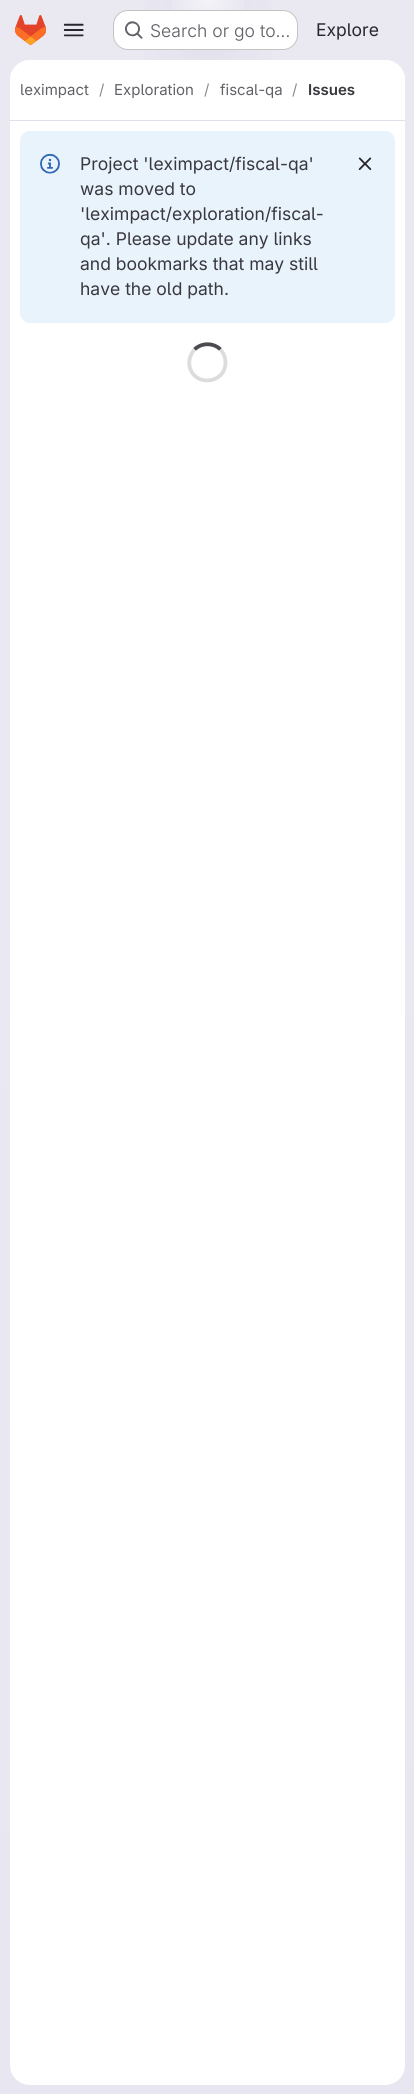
import math
import cairo

surface = cairo.ImageSurface(cairo.FORMAT_RGB24, 414, 2094)
cr = cairo.Context(surface)
options = cairo.FontOptions()
options.set_hint_metrics(cairo.HINT_METRICS_OFF)
options.set_hint_style(cairo.HINT_STYLE_NONE)
cr.set_font_options(options)
cr.set_miter_limit(4)


def rgb(code):
    cr.set_source_rgb(*(v / 255 for v in bytes.fromhex(code[-6:])))


def rrect(x, y, w, h, r):
    cr.new_sub_path()
    for i, (u, v) in enumerate([(x + w - r, y + h - r), (x + r, y + h - r), (x + r, y + r), (x + w - r, y + r)]):
        cr.arc(u, v, r, i * math.pi / 2, (i + 1) * math.pi / 2)
    cr.close_path()


def image(path, x, y, w, h):
    cr.save()
    cr.set_source_surface(cairo.ImageSurface.create_from_png(path), x, y)
    cr.rectangle(x, y, w, h)
    cr.fill()
    cr.restore()


rgb("#ffffff")
cr.paint()
gradient = cairo.LinearGradient(393, 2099, 22, -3.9)
gradient.add_color_stop_rgba(0, 0.91, 0.902, 0.941, 1)
gradient.add_color_stop_rgba(0.7, 0.918, 0.914, 0.949, 1)
cr.set_source(gradient)
cr.rectangle(0, 0, 414, 2094)
cr.fill()
gradient = cairo.RadialGradient(0, 0, 0, 0, 0, 1)
gradient.set_matrix(cairo.Matrix(1 / 208, 0, 0, 1 / 2095, -1 * 208 / 208, -1 * 0 / 2095))
gradient.add_color_stop_rgba(0, 0.894, 0.886, 0.929, 1)
gradient.add_color_stop_rgba(0.42, 0.894, 0.886, 0.929, 0)
cr.set_source(gradient)
cr.rectangle(145, 0, 126, 60)
cr.fill()
gradient = cairo.RadialGradient(0, 0, 0, 0, 0, 1)
gradient.set_matrix(cairo.Matrix(1 / 208, 0, 0, 1 / 2095, -1 * 208 / 208, -1 * 0 / 2095))
gradient.add_color_stop_rgba(0, 0.894, 0.886, 0.925, 1)
gradient.add_color_stop_rgba(0.3, 0.894, 0.886, 0.925, 0)
cr.set_source(gradient)
cr.rectangle(182, 12, 52, 46)
cr.fill()
gradient = cairo.RadialGradient(208, 0, 0, 208, 0, 2105)
gradient.add_color_stop_rgba(0, 1, 1, 1, 0.6)
gradient.add_color_stop_rgba(0.02, 1, 1, 1, 0)
cr.set_source(gradient)
cr.rectangle(172, 0, 72, 10)
cr.fill()
image("img/1.png", 15, 15, 31, 30)
image("img/2.png", 63, 23, 21, 14)
rgb("#ffffff")
rrect(113, 10, 185, 40, 15)
cr.fill()
rrect(113.5, 10.5, 184, 39, 14.5)
cr.set_source_rgba(0.02, 0.02, 0.024, 0.24)
cr.set_line_width(1)
cr.stroke()
image("img/3.png", 125, 21, 18, 18)
rgb("#ffffff")
rrect(10, 60, 395, 2025, 20)
cr.fill()
cr.new_path()
cr.move_to(30, 60)
cr.line_to(385, 60)
cr.curve_to(396, 60, 405, 69, 405, 80)
cr.line_to(405, 121)
cr.line_to(10, 121)
cr.line_to(10, 80)
cr.curve_to(10, 69, 19, 60, 30, 60)
cr.close_path()
cr.fill()
rgb("#e1dfec")
cr.rectangle(10, 120, 395, 1)
cr.fill()
rgb("#e9f3fc")
rrect(20, 131, 375, 192, 10)
cr.fill()
image("img/4.png", 40, 153, 20, 21)
image("img/5.png", 358, 157, 14, 13)
cr.new_path()
cr.move_to(194.5, 349.5)
cr.curve_to(201.5, 342.5, 213.5, 342.5, 220.5, 349.5)
rgb("#4c4b51")
cr.set_line_width(3.8)
cr.stroke()
cr.new_path()
cr.move_to(220.5, 349.5)
cr.curve_to(223.5, 353, 225.5, 357.5, 225.5, 362.5)
cr.curve_to(225.5, 384, 194, 387.5, 189.5, 366)
cr.curve_to(188.5, 360, 190.5, 354, 194.5, 349.5)
rgb("#dcdcde")
cr.stroke()
cr.select_font_face("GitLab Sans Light")
cr.set_font_size(17.5)
rgb("#626168")
cr.move_to(150, 37)
cr.show_text("Search or go to…")
cr.select_font_face("GitLab Sans")
rgb("#28272d")
cr.move_to(316, 36)
cr.show_text("Explore")
cr.set_font_size(15)
rgb("#626168")
cr.move_to(20, 95)
cr.show_text("leximpact")
rgb("#89888d")
cr.move_to(99, 95)
cr.show_text("/")
rgb("#626168")
cr.move_to(114, 95)
cr.show_text("Exploration")
rgb("#89888d")
cr.move_to(204, 95)
cr.show_text("/")
rgb("#626168")
cr.move_to(220, 95)
cr.show_text("fiscal-qa")
rgb("#89888d")
cr.move_to(292, 95)
cr.show_text("/")
cr.select_font_face("GitLab Sans SemiBold")
rgb("#3a383f")
cr.move_to(308, 95)
cr.show_text("Issues")
cr.select_font_face("GitLab Sans")
cr.set_font_size(17.5)
for x, y, s in [
    (80, 170, "Project 'leximpact/fiscal-qa'"),
    (80, 195, "was moved to"),
    (80, 220, "'leximpact/exploration/fiscal-"),
    (80, 245, "qa'. Please update any links"),
    (80, 270, "and bookmarks that may still"),
    (80, 295, "have the old path."),
]:
    cr.move_to(x, y)
    cr.show_text(s)
surface.write_to_png("page.png")
